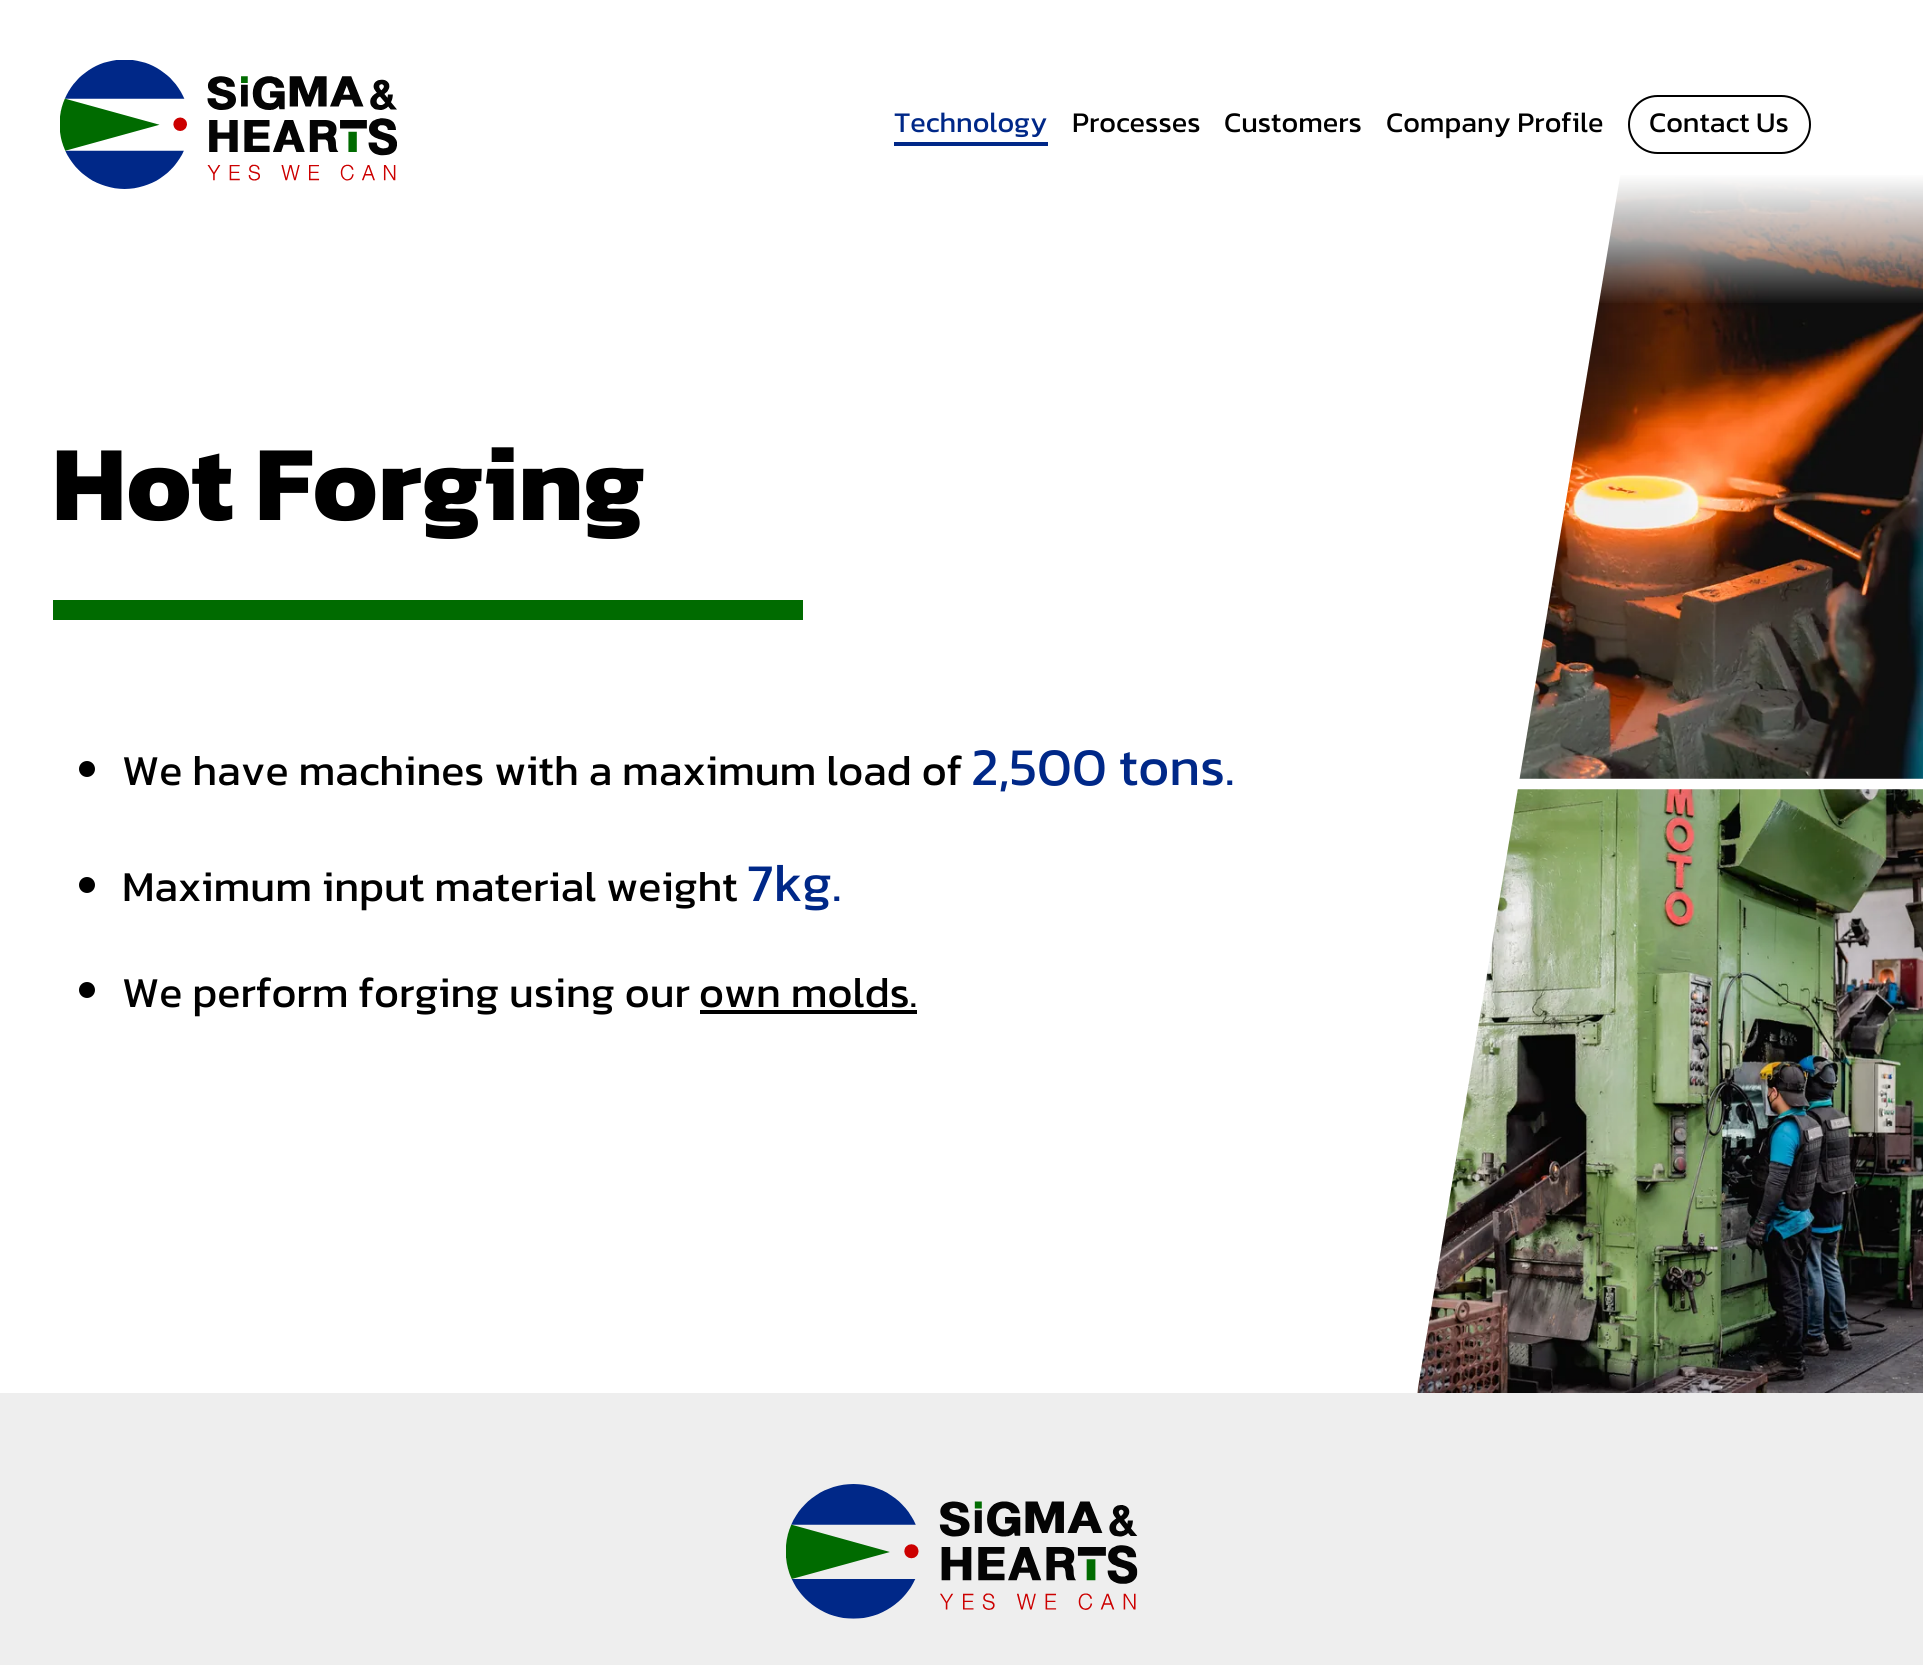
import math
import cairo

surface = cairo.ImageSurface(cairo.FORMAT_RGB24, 1923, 1665)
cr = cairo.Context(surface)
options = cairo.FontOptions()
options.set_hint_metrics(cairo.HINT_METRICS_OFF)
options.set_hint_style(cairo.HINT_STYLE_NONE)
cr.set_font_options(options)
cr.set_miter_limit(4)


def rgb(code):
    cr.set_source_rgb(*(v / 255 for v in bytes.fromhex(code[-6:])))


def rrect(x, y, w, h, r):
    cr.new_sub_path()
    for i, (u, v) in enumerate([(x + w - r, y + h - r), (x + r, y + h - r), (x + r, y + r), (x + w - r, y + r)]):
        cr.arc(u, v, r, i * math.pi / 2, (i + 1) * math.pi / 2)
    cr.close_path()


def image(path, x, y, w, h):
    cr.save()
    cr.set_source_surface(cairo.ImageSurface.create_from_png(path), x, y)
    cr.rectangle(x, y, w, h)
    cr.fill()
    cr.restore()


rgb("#ffffff")
cr.paint()
image("img/1.png", 60, 60, 337, 129)
rgb("#002888")
cr.rectangle(894, 142, 154, 4)
cr.fill()
rrect(1629, 96, 181, 57, 28.5)
rgb("#000000")
cr.stroke()
image("img/2.png", 1519, 175, 404, 604)
image("img/3.png", 1417, 789, 506, 604)
gradient = cairo.LinearGradient(962, 0, 962, 305)
gradient.add_color_stop_rgba(0.57, 1, 1, 1, 1)
gradient.add_color_stop_rgba(0.79, 1, 1, 1, 0.6)
gradient.add_color_stop_rgba(1, 1, 1, 1, 0)
cr.set_source(gradient)
cr.rectangle(1599, 175, 324, 128)
cr.fill()
rgb("#006b00")
cr.rectangle(53, 600, 750, 20)
cr.fill()
rgb("#000000")
cr.arc(87, 769, 8, 0, 2 * math.pi)
cr.fill()
cr.arc(87, 885, 8, 0, 2 * math.pi)
cr.fill()
cr.arc(87, 990, 8, 0, 2 * math.pi)
cr.fill()
cr.rectangle(700, 1010, 217, 4)
cr.fill()
rgb("#eeeeee")
cr.rectangle(0, 1393, 1923, 272)
cr.fill()
image("img/4.png", 786, 1484, 352, 135)
cr.select_font_face("Kanit")
cr.set_font_size(28.75)
rgb("#002888")
cr.move_to(894, 132)
cr.show_text("Technology")
rgb("#000000")
for x, y, s in [
    (1072, 132, "Processes"),
    (1224, 132, "Customers"),
    (1386, 132, "Company Profile"),
    (1649, 132, "Contact Us"),
]:
    cr.move_to(x, y)
    cr.show_text(s)
cr.select_font_face("Kanit", cairo.FONT_SLANT_NORMAL, cairo.FONT_WEIGHT_BOLD)
cr.set_font_size(108)
cr.move_to(52, 520)
cr.show_text("Hot Forging")
cr.select_font_face("Kanit")
cr.set_font_size(43)
cr.move_to(122, 785)
cr.show_text("We have machines with a maximum load of")
cr.set_font_size(53.5)
rgb("#002888")
cr.move_to(971, 785)
cr.show_text("2,500 tons.")
cr.set_font_size(43)
rgb("#000000")
cr.move_to(122, 901)
cr.show_text("Maximum input material weight")
cr.set_font_size(53.5)
rgb("#002888")
cr.move_to(747, 901)
cr.show_text("7kg.")
cr.set_font_size(43)
rgb("#000000")
cr.move_to(122, 1007)
cr.show_text("We perform forging using our")
cr.move_to(699, 1007)
cr.show_text("own molds.")
surface.write_to_png("page.png")
